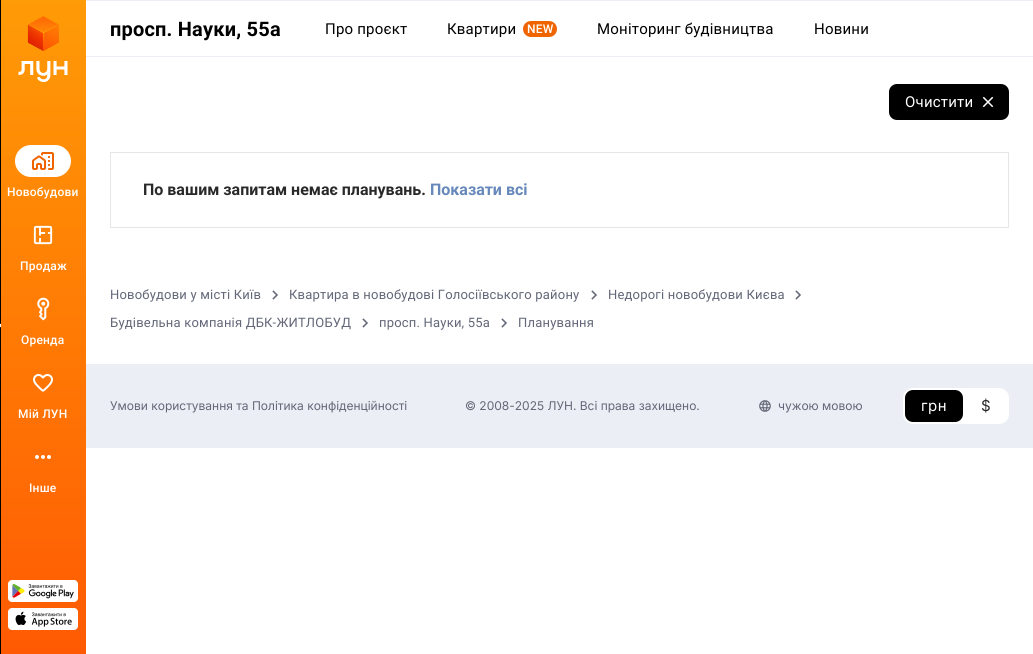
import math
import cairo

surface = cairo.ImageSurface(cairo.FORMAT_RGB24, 1033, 654)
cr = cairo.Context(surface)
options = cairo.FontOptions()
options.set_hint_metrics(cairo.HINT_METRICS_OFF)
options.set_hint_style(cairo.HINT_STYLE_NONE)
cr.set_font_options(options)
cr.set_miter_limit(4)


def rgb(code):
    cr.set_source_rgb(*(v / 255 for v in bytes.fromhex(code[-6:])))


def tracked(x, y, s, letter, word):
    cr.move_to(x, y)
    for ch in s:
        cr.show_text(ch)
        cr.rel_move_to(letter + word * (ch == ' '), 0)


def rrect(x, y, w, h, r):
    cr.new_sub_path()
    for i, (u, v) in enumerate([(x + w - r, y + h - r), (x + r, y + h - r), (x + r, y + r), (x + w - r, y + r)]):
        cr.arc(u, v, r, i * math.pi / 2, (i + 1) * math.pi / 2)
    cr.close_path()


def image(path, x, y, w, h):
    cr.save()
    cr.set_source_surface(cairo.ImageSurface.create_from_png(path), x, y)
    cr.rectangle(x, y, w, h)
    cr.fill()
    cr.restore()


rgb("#ffffff")
cr.paint()
rgb("#000000")
cr.rectangle(0, 0, 1, 654)
cr.fill()
image("img/1.png", 0, 323, 1, 5)
gradient = cairo.LinearGradient(43, 0, 43, 654)
gradient.add_color_stop_rgba(0, 1, 0.608, 0.024, 1)
gradient.add_color_stop_rgba(1, 1, 0.353, 0.012, 1)
cr.set_source(gradient)
cr.rectangle(1, 0, 85, 654)
cr.fill()
image("img/2.png", 18, 16, 50, 66)
rgb("#ffffff")
rrect(15, 145, 56, 32, 16)
cr.fill()
image("img/3.png", 32, 152, 22, 18)
image("img/4.png", 33, 225, 20, 20)
image("img/5.png", 37, 297, 13, 24)
image("img/6.png", 33, 374, 20, 18)
image("img/7.png", 35, 455, 16, 4)
rrect(8, 580, 70, 22, 4)
cr.fill()
image("img/8.png", 12, 584, 62, 15)
rrect(8, 608, 70, 22, 4)
cr.fill()
image("img/9.png", 15, 611, 57, 16)
rgb("#ebeef4")
cr.rectangle(86, 0, 947, 1)
cr.fill()
cr.rectangle(86, 56, 947, 1)
cr.fill()
rgb("#f06400")
rrect(523, 21, 34, 16, 8)
cr.fill()
rgb("#000000")
rrect(889, 84, 120, 36, 8)
cr.fill()
image("img/10.png", 982, 96, 12, 12)
cr.rectangle(110.5, 152.5, 898, 75)
rgb("#e6e6e6")
cr.set_line_width(1)
cr.stroke()
image("img/11.png", 272, 290, 6, 10)
image("img/11.png", 591, 290, 6, 10)
image("img/11.png", 795, 290, 6, 10)
image("img/11.png", 362, 318, 6, 10)
image("img/11.png", 501, 318, 6, 10)
rgb("#ebeef4")
cr.rectangle(86, 364, 947, 84)
cr.fill()
image("img/12.png", 759, 400, 12, 12)
rgb("#ffffff")
rrect(903, 388, 106, 36, 10)
cr.fill()
rgb("#000000")
rrect(905, 390, 58, 32, 8)
cr.fill()
cr.select_font_face("Roboto Medium")
cr.set_font_size(12)
rgb("#ffffff")
for x, y, s in [
    (7, 196, "Новобудови"),
    (20, 270, "Продаж"),
    (21, 344, "Оренда"),
    (18, 418, "Мій ЛУН"),
    (29, 492, "Інше"),
]:
    tracked(x, y, s, 0.2, 0)
cr.select_font_face("Roboto", cairo.FONT_SLANT_NORMAL, cairo.FONT_WEIGHT_BOLD)
cr.set_font_size(20)
rgb("#000000")
tracked(110, 36, "просп. Науки, 55а", 0.2, 0)
cr.select_font_face("Roboto")
cr.set_font_size(15)
tracked(325, 34, "Про проєкт", 0.2, 0)
tracked(447, 34, "Квартири", 0.2, 0)
cr.select_font_face("Roboto Medium")
cr.set_font_size(12)
rgb("#ffffff")
tracked(527, 33, "NEW", 0.2, 0)
cr.select_font_face("Roboto")
cr.set_font_size(15)
rgb("#000000")
tracked(597, 34, "Моніторинг будівництва", 0.2, 0)
tracked(814, 34, "Новини", 0.2, 0)
rgb("#ffffff")
tracked(905, 107, "Очистити", 0.2, 0)
cr.select_font_face("Roboto", cairo.FONT_SLANT_NORMAL, cairo.FONT_WEIGHT_BOLD)
cr.set_font_size(16)
rgb("#292929")
cr.move_to(143, 195)
cr.show_text("По вашим запитам немає планувань.")
rgb("#6688bb")
cr.move_to(430, 195)
cr.show_text("Показати всі")
cr.select_font_face("Roboto")
cr.set_font_size(13)
rgb("#636778")
for x, y, s in [
    (110, 299, "Новобудови у місті Київ"),
    (289, 299, "Квартира в новобудові Голосіївського району"),
    (608, 299, "Недорогі новобудови Києва"),
    (110, 327, "Будівельна компанія ДБК-ЖИТЛОБУД"),
    (379, 327, "просп. Науки, 55а"),
    (518, 327, "Планування"),
]:
    tracked(x, y, s, 0.2, 0)
cr.select_font_face("Inter")
cr.set_font_size(12)
for x, y, s in [
    (110, 410, "Умови користування та Політика конфіденційності"),
    (465, 410, "© 2008-2025 ЛУН. Всі права захищено."),
    (778, 410, "чужою мовою"),
]:
    cr.move_to(x, y)
    cr.show_text(s)
cr.set_font_size(15)
rgb("#ffffff")
tracked(921, 411, "грн", 0.5, 0)
rgb("#292929")
tracked(981, 411, "$", 0.5, 0)
surface.write_to_png("page.png")
